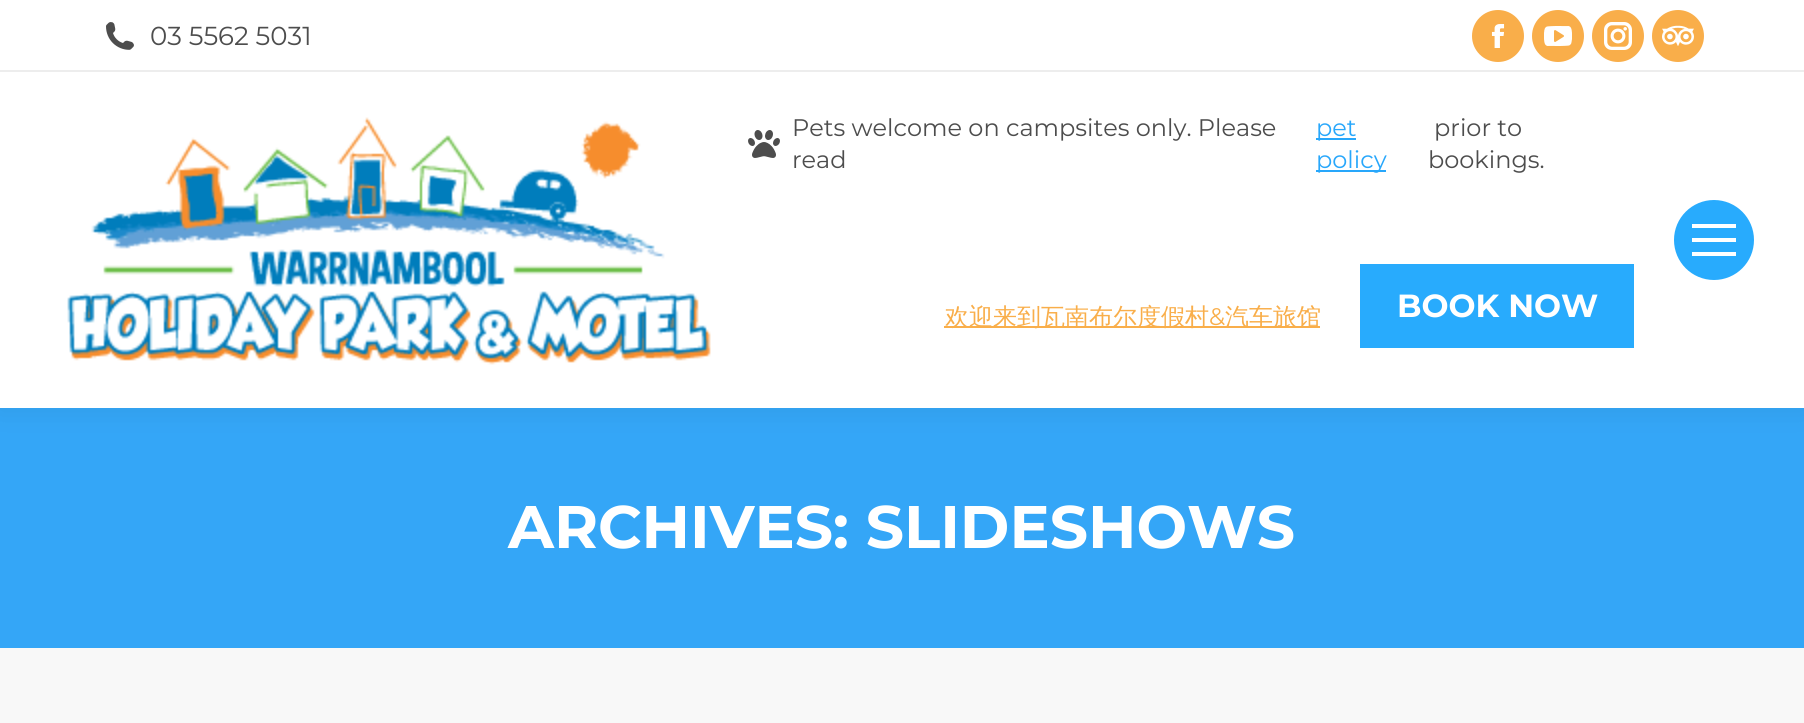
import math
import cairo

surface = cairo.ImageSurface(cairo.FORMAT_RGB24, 1804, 723)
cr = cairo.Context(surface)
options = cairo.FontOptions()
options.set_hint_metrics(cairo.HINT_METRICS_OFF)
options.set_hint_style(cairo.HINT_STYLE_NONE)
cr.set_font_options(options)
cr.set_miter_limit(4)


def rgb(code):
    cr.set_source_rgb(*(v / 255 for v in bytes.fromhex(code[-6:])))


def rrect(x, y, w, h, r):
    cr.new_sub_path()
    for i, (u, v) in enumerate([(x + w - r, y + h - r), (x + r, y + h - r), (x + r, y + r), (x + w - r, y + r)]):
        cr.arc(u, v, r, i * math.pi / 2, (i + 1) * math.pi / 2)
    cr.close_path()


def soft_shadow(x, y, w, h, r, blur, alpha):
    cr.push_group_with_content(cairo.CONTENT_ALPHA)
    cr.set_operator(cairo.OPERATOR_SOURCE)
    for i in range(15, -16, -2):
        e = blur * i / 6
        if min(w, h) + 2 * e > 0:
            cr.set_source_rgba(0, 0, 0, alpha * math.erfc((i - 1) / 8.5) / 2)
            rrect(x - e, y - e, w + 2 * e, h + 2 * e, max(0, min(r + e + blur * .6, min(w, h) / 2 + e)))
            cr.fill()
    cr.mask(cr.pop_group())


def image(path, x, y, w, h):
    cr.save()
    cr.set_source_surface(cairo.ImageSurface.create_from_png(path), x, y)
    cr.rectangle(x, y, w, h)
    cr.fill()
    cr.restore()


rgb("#f8f8f8")
cr.paint()
rgb("#34a6f7")
cr.rectangle(0, 408, 1804, 240)
cr.fill()
rgb("#000000")
soft_shadow(-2, -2, 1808, 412, 0, 15, 0.07)
rgb("#ffffff")
cr.rectangle(0, 0, 1804, 408)
cr.fill()
image("img/1.png", 106, 22, 28, 28)
rgb("#f9ae4a")
cr.arc(1498, 36, 26, 0, 2 * math.pi)
cr.fill()
image("img/2.png", 1491, 24, 14, 24)
cr.arc(1558, 36, 26, 0, 2 * math.pi)
cr.fill()
image("img/3.png", 1544, 26, 28, 20)
cr.arc(1618, 36, 26, 0, 2 * math.pi)
cr.fill()
image("img/4.png", 1604, 22, 28, 28)
cr.arc(1678, 36, 26, 0, 2 * math.pi)
cr.fill()
image("img/5.png", 1662, 25, 32, 21)
rgb("#ededed")
cr.rectangle(0, 70, 1804, 2)
cr.fill()
image("img/6.png", 67, 117, 644, 248)
image("img/7.png", 748, 130, 32, 28)
for x, y, w, h, color in [
    (1316, 138, 40, 2, "#28a7fb"),
    (1316, 170, 70, 2, "#28a7fb"),
    (944, 326, 376, 2, "#f9ae4a"),
    (1360, 264, 274, 84, "#28abfd"),
]:
    rgb(color)
    cr.rectangle(x, y, w, h)
    cr.fill()
cr.arc(1714, 240, 40, 0, 2 * math.pi)
cr.fill()
for x, y, w, h, color in [
    (1692, 224, 44, 4, "#ffffff"),
    (1692, 238, 44, 4, "#ffffff"),
    (1692, 252, 44, 4, "#ffffff"),
]:
    rgb(color)
    cr.rectangle(x, y, w, h)
    cr.fill()
cr.select_font_face("Montserrat")
cr.set_font_size(26)
rgb("#4d4d4d")
cr.move_to(150, 45)
cr.show_text("03 5562 5031")
cr.set_font_size(24)
cr.move_to(792, 136)
cr.show_text("Pets welcome on campsites only. Please")
rgb("#28a7fb")
cr.move_to(1316, 136)
cr.show_text("pet")
cr.move_to(1316, 168)
cr.show_text("policy")
rgb("#4d4d4d")
for x, y, s in [
    (1434, 136, "prior to"),
    (792, 168, "read"),
    (1428, 168, "bookings."),
]:
    cr.move_to(x, y)
    cr.show_text(s)
cr.select_font_face("WenQuanYi Zen Hei Medium")
rgb("#f9ae4a")
cr.move_to(945, 325)
cr.show_text("欢迎来到瓦南布尔度假村")
cr.select_font_face("Montserrat")
cr.move_to(1209, 325)
cr.show_text("&")
cr.select_font_face("WenQuanYi Zen Hei Medium")
cr.move_to(1225, 325)
cr.show_text("汽车旅馆")
cr.select_font_face("Montserrat", cairo.FONT_SLANT_NORMAL, cairo.FONT_WEIGHT_BOLD)
cr.set_font_size(32)
rgb("#ffffff")
cr.move_to(1397, 317)
cr.show_text("BOOK NOW")
cr.set_font_size(60)
cr.move_to(508, 548)
cr.show_text("ARCHIVES: SLIDESHOWS")
surface.write_to_png("page.png")
